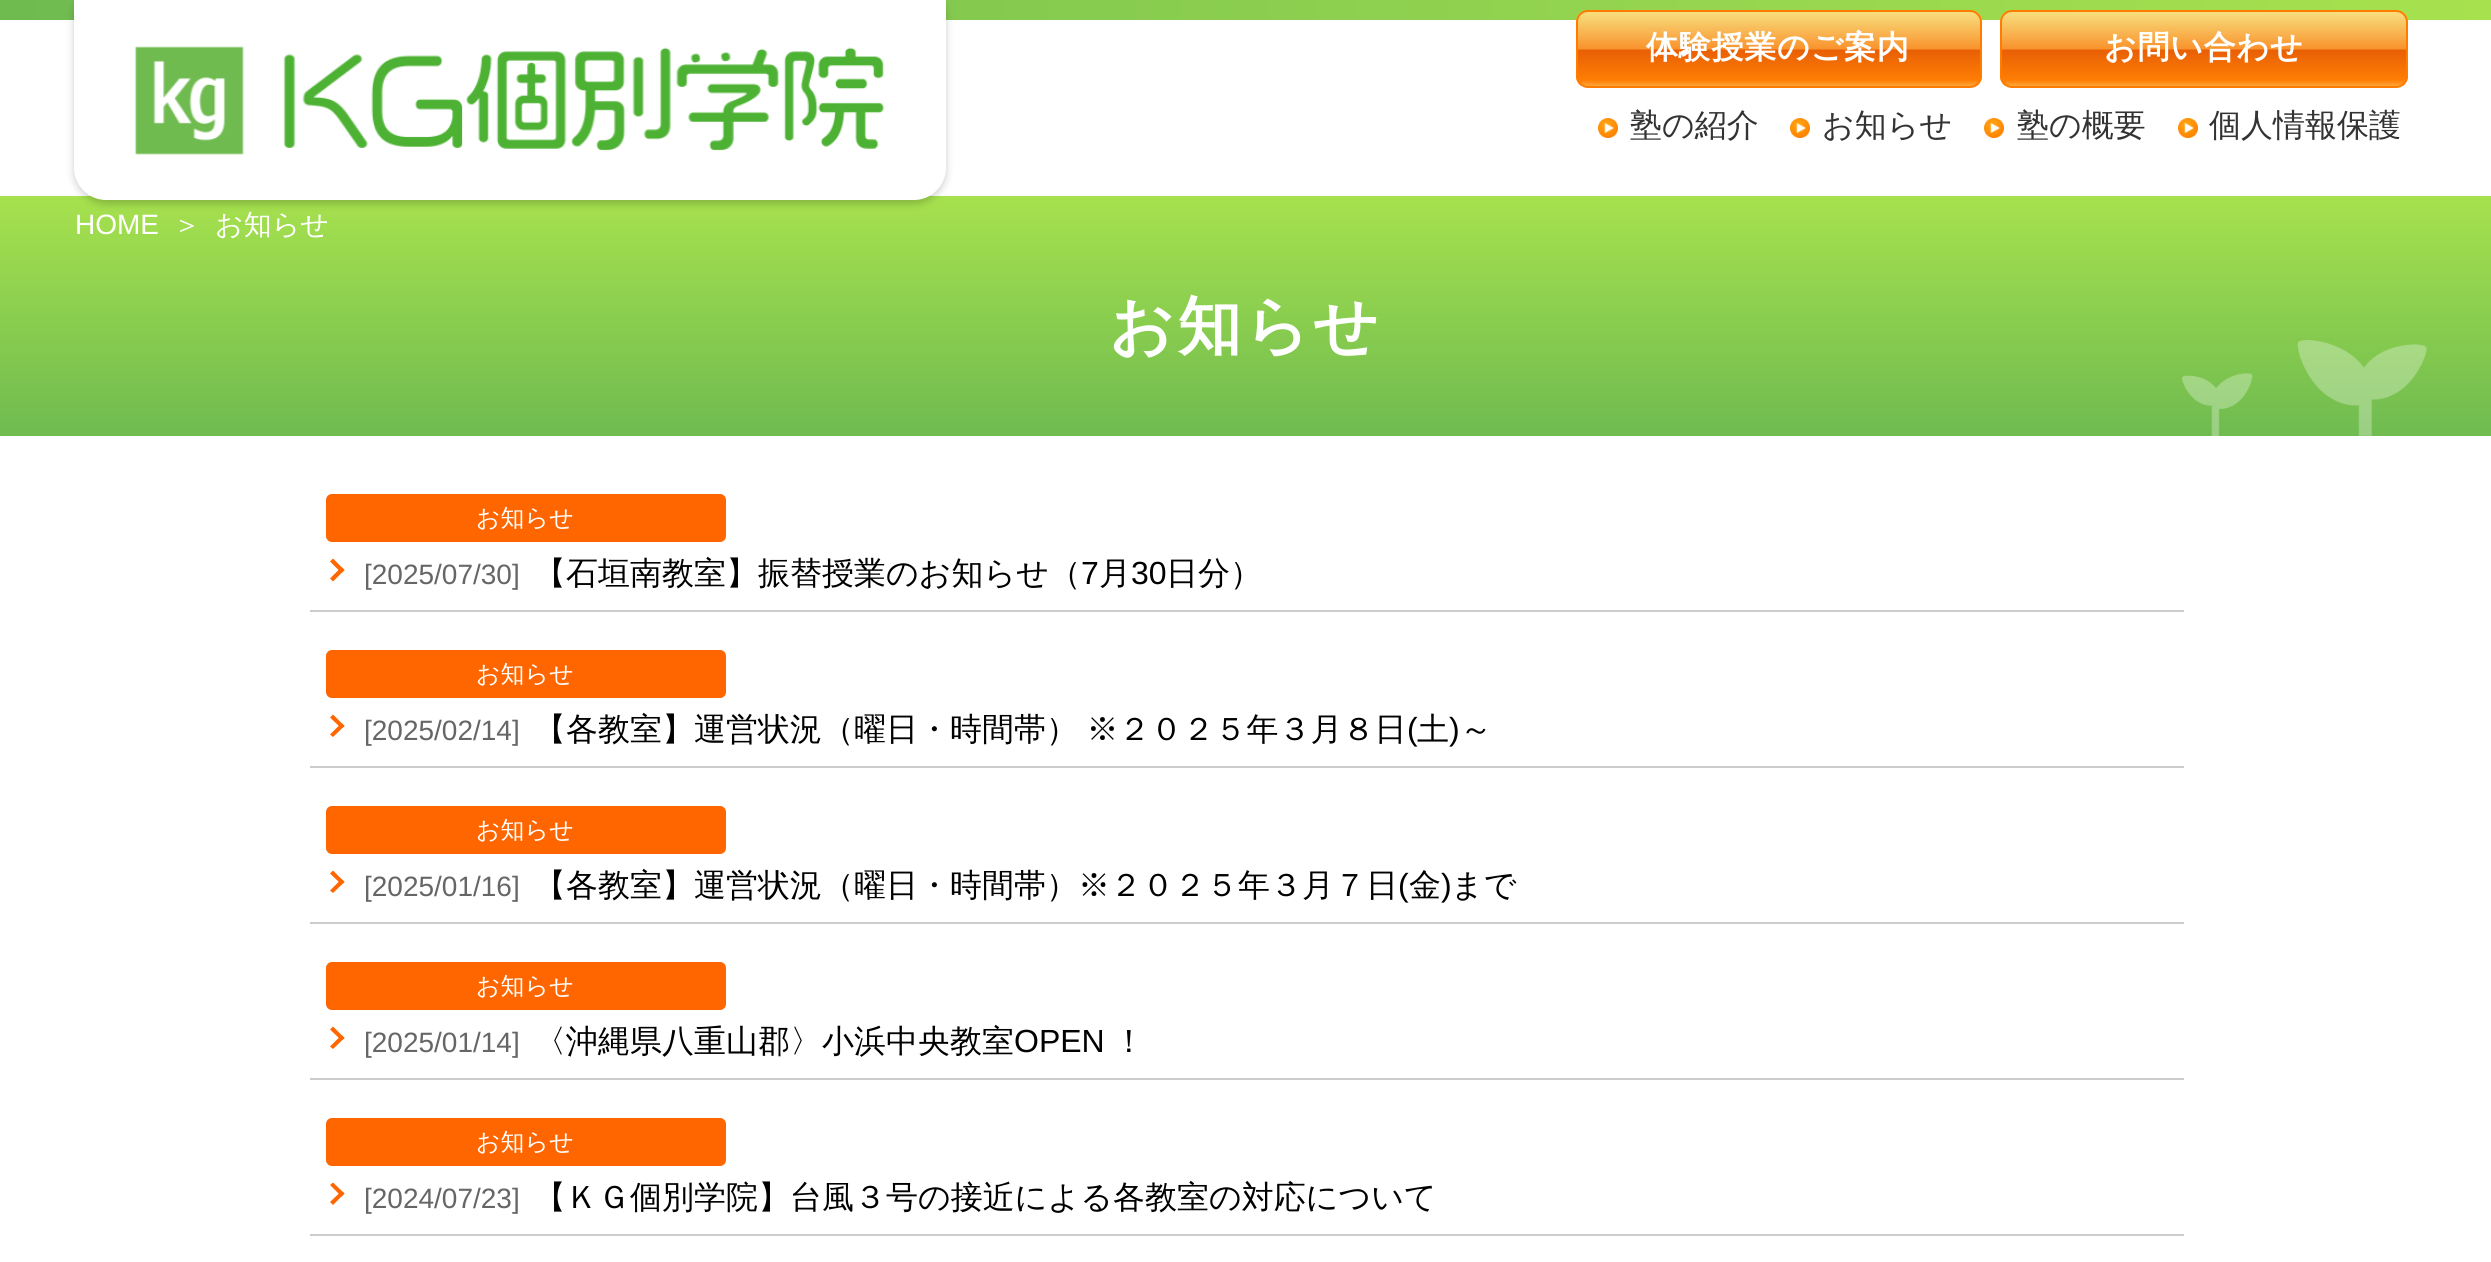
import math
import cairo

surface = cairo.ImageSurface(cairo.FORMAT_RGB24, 2491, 1262)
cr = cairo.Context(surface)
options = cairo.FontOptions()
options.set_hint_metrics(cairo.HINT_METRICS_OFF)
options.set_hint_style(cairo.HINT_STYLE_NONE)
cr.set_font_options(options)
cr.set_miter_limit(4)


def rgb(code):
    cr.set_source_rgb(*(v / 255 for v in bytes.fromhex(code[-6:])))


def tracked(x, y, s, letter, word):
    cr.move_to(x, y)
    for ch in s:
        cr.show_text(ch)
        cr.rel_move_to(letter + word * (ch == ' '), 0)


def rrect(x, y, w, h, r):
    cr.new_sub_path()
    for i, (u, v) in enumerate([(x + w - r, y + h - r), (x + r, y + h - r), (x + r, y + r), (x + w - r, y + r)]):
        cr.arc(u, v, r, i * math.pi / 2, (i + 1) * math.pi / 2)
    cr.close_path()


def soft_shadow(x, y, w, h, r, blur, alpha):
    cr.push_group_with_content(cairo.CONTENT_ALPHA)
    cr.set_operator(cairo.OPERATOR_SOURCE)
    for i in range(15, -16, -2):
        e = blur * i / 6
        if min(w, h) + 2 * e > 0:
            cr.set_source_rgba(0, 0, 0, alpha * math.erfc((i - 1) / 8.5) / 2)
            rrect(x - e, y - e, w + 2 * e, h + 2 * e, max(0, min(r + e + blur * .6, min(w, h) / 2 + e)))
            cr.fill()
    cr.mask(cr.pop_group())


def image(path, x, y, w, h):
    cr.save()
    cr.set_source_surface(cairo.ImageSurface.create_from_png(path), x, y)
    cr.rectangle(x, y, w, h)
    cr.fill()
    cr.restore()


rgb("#ffffff")
cr.paint()
gradient = cairo.LinearGradient(0, 10, 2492, 10)
gradient.add_color_stop_rgba(0, 0.435, 0.733, 0.314, 1)
gradient.add_color_stop_rgba(1, 0.655, 0.882, 0.306, 1)
cr.set_source(gradient)
cr.rectangle(0, 0, 2491, 20)
cr.fill()
image("img/6.png", 0, 196, 2491, 240)
rgb("#000000")
soft_shadow(74, -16, 872, 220, 32, 4, 0.2)
rgb("#ffffff")
cr.new_path()
cr.move_to(74, -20)
cr.line_to(946, -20)
cr.line_to(946, 168)
cr.curve_to(946, 185.5, 931.5, 200, 914, 200)
cr.line_to(106, 200)
cr.curve_to(88.5, 200, 74, 185.5, 74, 168)
cr.close_path()
cr.fill()
image("img/1.png", 134, 46, 751, 109)
image("img/2.png", 1576, 12, 406, 74)
rrect(1577, 11, 404, 76, 11)
rgb("#ff7c00")
cr.stroke()
image("img/3.png", 2000, 12, 408, 74)
rrect(2001, 11, 406, 76, 11)
cr.stroke()
image("img/4.png", 1598, 118, 20, 20)
image("img/5.png", 1790, 118, 20, 20)
image("img/4.png", 1984, 118, 20, 20)
image("img/4.png", 2178, 118, 20, 20)
rgb("#cccccc")
cr.rectangle(310, 610, 1874, 2)
cr.fill()
rgb("#ff6600")
rrect(326, 494, 400, 48, 6)
cr.fill()
cr.new_path()
cr.move_to(330, 561.5)
cr.line_to(333, 558.5)
cr.line_to(344.5, 570)
cr.line_to(341.5, 573)
cr.close_path()
cr.fill()
cr.new_path()
cr.move_to(330, 578.5)
cr.line_to(341.5, 567)
cr.line_to(344.5, 570)
cr.line_to(333, 581.5)
cr.close_path()
cr.fill()
rgb("#cccccc")
cr.rectangle(310, 766, 1874, 2)
cr.fill()
rgb("#ff6600")
rrect(326, 650, 400, 48, 6)
cr.fill()
cr.new_path()
cr.move_to(330, 717.5)
cr.line_to(333, 714.5)
cr.line_to(344.5, 726)
cr.line_to(341.5, 728.5)
cr.close_path()
cr.fill()
cr.new_path()
cr.move_to(330, 734.5)
cr.line_to(341.5, 723)
cr.line_to(344.5, 726)
cr.line_to(333, 737)
cr.close_path()
cr.fill()
rgb("#cccccc")
cr.rectangle(310, 922, 1874, 2)
cr.fill()
rgb("#ff6600")
rrect(326, 806, 400, 48, 6)
cr.fill()
cr.new_path()
cr.move_to(330, 873.5)
cr.line_to(333, 870.5)
cr.line_to(344.5, 882)
cr.line_to(341.5, 884.5)
cr.close_path()
cr.fill()
cr.new_path()
cr.move_to(330, 890.5)
cr.line_to(341.5, 879)
cr.line_to(344.5, 882)
cr.line_to(333, 893)
cr.close_path()
cr.fill()
rgb("#cccccc")
cr.rectangle(310, 1078, 1874, 2)
cr.fill()
rgb("#ff6600")
rrect(326, 962, 400, 48, 6)
cr.fill()
cr.new_path()
cr.move_to(330, 1029.5)
cr.line_to(333, 1026.5)
cr.line_to(344.5, 1038)
cr.line_to(341.5, 1040.5)
cr.close_path()
cr.fill()
cr.new_path()
cr.move_to(330, 1046.5)
cr.line_to(341.5, 1035)
cr.line_to(344.5, 1038)
cr.line_to(333, 1049)
cr.close_path()
cr.fill()
rgb("#cccccc")
cr.rectangle(310, 1234, 1874, 2)
cr.fill()
rgb("#ff6600")
rrect(326, 1118, 400, 48, 6)
cr.fill()
cr.new_path()
cr.move_to(330, 1185)
cr.line_to(333, 1182.5)
cr.line_to(344.5, 1193.5)
cr.line_to(341.5, 1196.5)
cr.close_path()
cr.fill()
cr.new_path()
cr.move_to(330, 1202)
cr.line_to(341.5, 1191)
cr.line_to(344.5, 1193.5)
cr.line_to(333, 1205)
cr.close_path()
cr.fill()
cr.select_font_face("WenQuanYi Zen Hei", cairo.FONT_SLANT_NORMAL, cairo.FONT_WEIGHT_BOLD)
cr.set_font_size(32)
rgb("#ffffff")
tracked(1646, 58, "体験授業のご案内", 0.75, 0)
tracked(2104, 58, "お問い合わせ", 0.75, 0)
cr.select_font_face("WenQuanYi Zen Hei Medium")
rgb("#333333")
for x, y, s in [
    (1630, 136, "塾の紹介"),
    (1822, 136, "お知らせ"),
    (2017, 136, "塾の概要"),
    (2209, 136, "個人情報保護"),
]:
    cr.move_to(x, y)
    cr.show_text(s)
cr.select_font_face("Liberation Sans")
cr.set_font_size(28)
rgb("#ffffff")
cr.move_to(75, 234)
cr.show_text("HOME")
cr.select_font_face("WenQuanYi Zen Hei Medium")
cr.move_to(173, 234)
cr.show_text("＞")
cr.move_to(215, 234)
cr.show_text("お知らせ")
cr.select_font_face("WenQuanYi Zen Hei", cairo.FONT_SLANT_NORMAL, cairo.FONT_WEIGHT_BOLD)
cr.set_font_size(64)
tracked(1109, 348, "お知らせ", 3, 0)
cr.select_font_face("WenQuanYi Zen Hei Medium")
cr.set_font_size(24)
cr.move_to(476, 526)
cr.show_text("お知らせ")
cr.select_font_face("Liberation Sans")
cr.set_font_size(28)
rgb("#666666")
cr.move_to(364, 584)
cr.show_text("[2025/07/30]")
cr.select_font_face("WenQuanYi Zen Hei Medium")
cr.set_font_size(32)
rgb("#000000")
cr.move_to(534, 584)
cr.show_text("【石垣南教室】振替授業のお知らせ（")
cr.select_font_face("Liberation Sans")
cr.move_to(1081, 584)
cr.show_text("7")
cr.select_font_face("WenQuanYi Zen Hei Medium")
cr.move_to(1099, 584)
cr.show_text("月")
cr.select_font_face("Liberation Sans")
cr.move_to(1131, 584)
cr.show_text("30")
cr.select_font_face("WenQuanYi Zen Hei Medium")
cr.move_to(1166, 584)
cr.show_text("日分）")
cr.set_font_size(24)
rgb("#ffffff")
cr.move_to(476, 682)
cr.show_text("お知らせ")
cr.select_font_face("Liberation Sans")
cr.set_font_size(28)
rgb("#666666")
cr.move_to(364, 740)
cr.show_text("[2025/02/14]")
cr.select_font_face("WenQuanYi Zen Hei Medium")
cr.set_font_size(32)
rgb("#000000")
tracked(534, 740, "【各教室】運営状況（曜日・時間帯） ※２０２５年３月８日", 0, -1)
cr.select_font_face("Liberation Sans")
cr.move_to(1407, 740)
cr.show_text("(")
cr.select_font_face("WenQuanYi Zen Hei Medium")
cr.move_to(1417, 740)
cr.show_text("土")
cr.select_font_face("Liberation Sans")
cr.move_to(1449, 740)
cr.show_text(")")
cr.select_font_face("WenQuanYi Zen Hei Medium")
cr.move_to(1460, 740)
cr.show_text("～")
cr.set_font_size(24)
rgb("#ffffff")
cr.move_to(476, 838)
cr.show_text("お知らせ")
cr.select_font_face("Liberation Sans")
cr.set_font_size(28)
rgb("#666666")
cr.move_to(364, 896)
cr.show_text("[2025/01/16]")
cr.select_font_face("WenQuanYi Zen Hei Medium")
cr.set_font_size(32)
rgb("#000000")
cr.move_to(534, 896)
cr.show_text("【各教室】運営状況（曜日・時間帯）※２０２５年３月７日")
cr.select_font_face("Liberation Sans")
cr.move_to(1398, 896)
cr.show_text("(")
cr.select_font_face("WenQuanYi Zen Hei Medium")
cr.move_to(1409, 896)
cr.show_text("金")
cr.select_font_face("Liberation Sans")
cr.move_to(1441, 896)
cr.show_text(")")
cr.select_font_face("WenQuanYi Zen Hei Medium")
cr.move_to(1451, 896)
cr.show_text("まで")
cr.set_font_size(24)
rgb("#ffffff")
cr.move_to(476, 994)
cr.show_text("お知らせ")
cr.select_font_face("Liberation Sans")
cr.set_font_size(28)
rgb("#666666")
cr.move_to(364, 1052)
cr.show_text("[2025/01/14]")
cr.select_font_face("WenQuanYi Zen Hei Medium")
cr.set_font_size(32)
rgb("#000000")
cr.move_to(534, 1052)
cr.show_text("〈沖縄県八重山郡〉小浜中央教室")
cr.select_font_face("Liberation Sans")
cr.move_to(1014, 1052)
cr.show_text("OPEN")
cr.select_font_face("WenQuanYi Zen Hei Medium")
cr.move_to(1113, 1052)
cr.show_text("！")
cr.set_font_size(24)
rgb("#ffffff")
cr.move_to(476, 1150)
cr.show_text("お知らせ")
cr.select_font_face("Liberation Sans")
cr.set_font_size(28)
rgb("#666666")
cr.move_to(364, 1208)
cr.show_text("[2024/07/23]")
cr.select_font_face("WenQuanYi Zen Hei Medium")
cr.set_font_size(32)
rgb("#000000")
cr.move_to(534, 1208)
cr.show_text("【ＫＧ個別学院】台風３号の接近による各教室の対応について")
surface.write_to_png("page.png")
